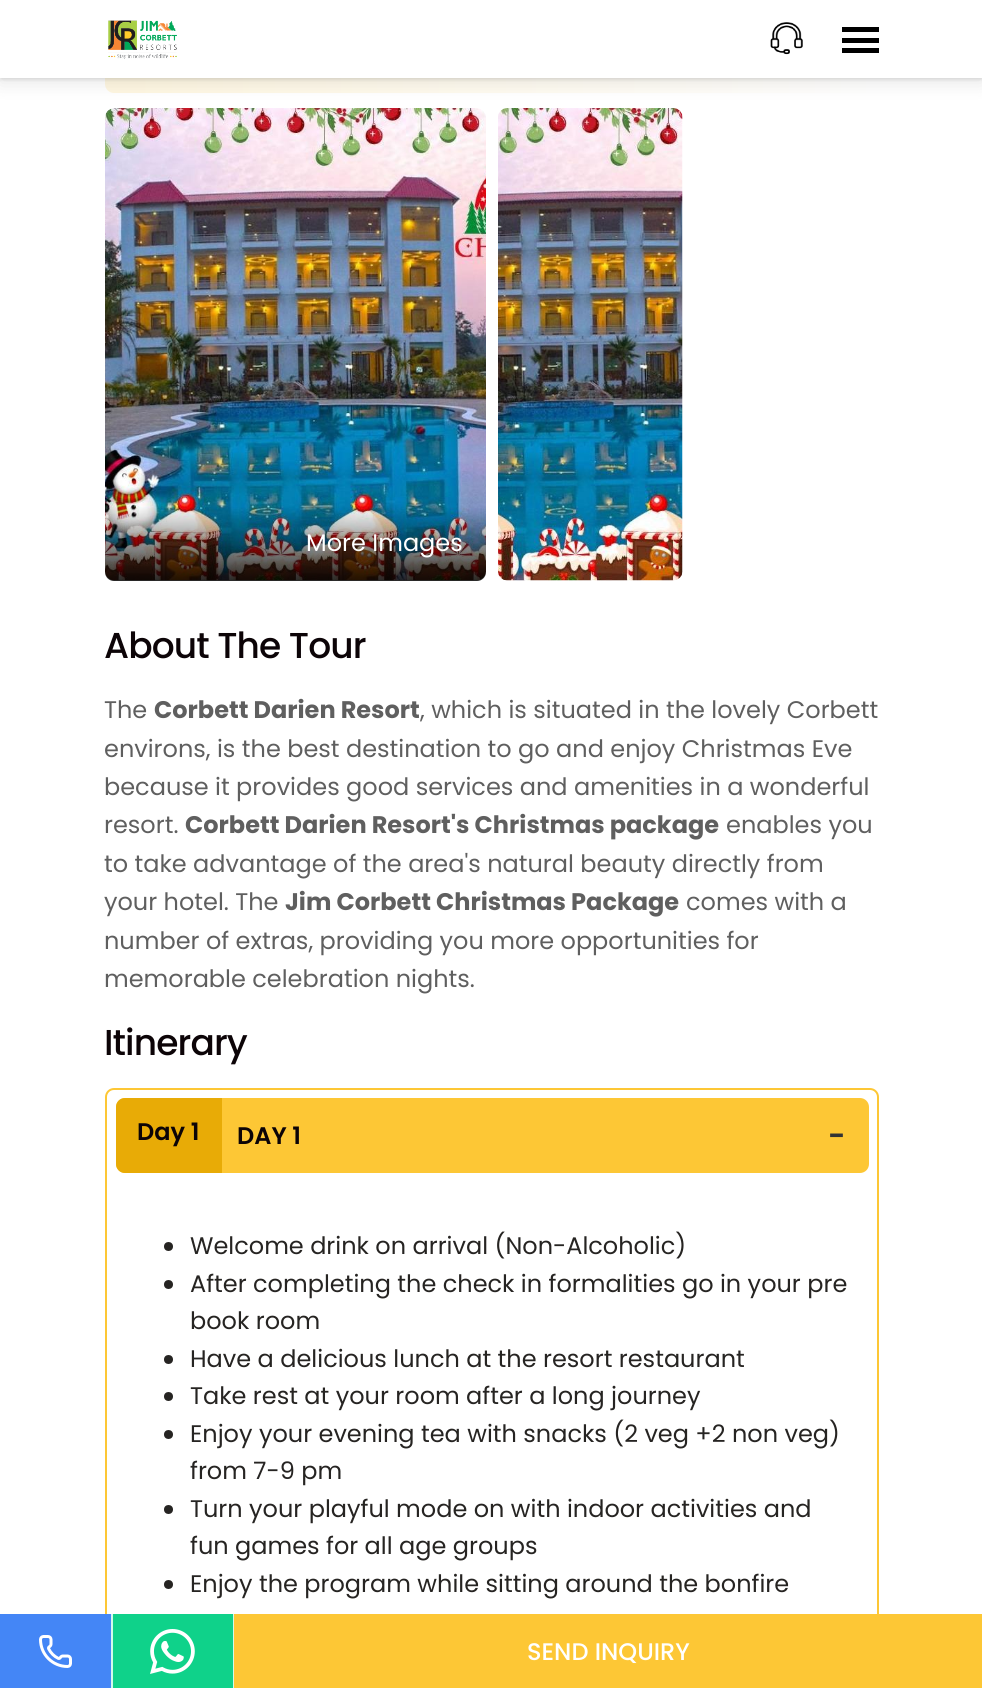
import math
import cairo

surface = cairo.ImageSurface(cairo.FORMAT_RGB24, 982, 1688)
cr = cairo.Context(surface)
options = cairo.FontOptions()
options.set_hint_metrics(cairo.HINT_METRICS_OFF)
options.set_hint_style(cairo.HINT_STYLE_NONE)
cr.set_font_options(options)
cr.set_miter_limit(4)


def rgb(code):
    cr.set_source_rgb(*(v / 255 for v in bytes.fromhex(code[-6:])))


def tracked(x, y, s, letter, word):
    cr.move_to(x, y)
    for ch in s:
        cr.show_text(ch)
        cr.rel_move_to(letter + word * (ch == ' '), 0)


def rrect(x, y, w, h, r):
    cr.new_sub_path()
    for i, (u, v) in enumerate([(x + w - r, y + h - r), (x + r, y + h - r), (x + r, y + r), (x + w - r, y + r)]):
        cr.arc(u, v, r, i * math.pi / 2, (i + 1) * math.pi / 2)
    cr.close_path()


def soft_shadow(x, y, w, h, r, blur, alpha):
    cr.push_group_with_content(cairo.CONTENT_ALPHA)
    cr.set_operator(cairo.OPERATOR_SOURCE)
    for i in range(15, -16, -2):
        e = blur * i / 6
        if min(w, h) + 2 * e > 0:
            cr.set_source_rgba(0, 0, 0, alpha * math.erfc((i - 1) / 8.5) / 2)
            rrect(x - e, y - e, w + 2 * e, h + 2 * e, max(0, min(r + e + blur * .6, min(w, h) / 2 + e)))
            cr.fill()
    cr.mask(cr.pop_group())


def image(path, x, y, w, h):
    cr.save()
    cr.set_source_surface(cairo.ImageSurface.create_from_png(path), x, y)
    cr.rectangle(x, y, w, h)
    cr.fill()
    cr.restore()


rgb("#ffffff")
cr.paint()
gradient = cairo.LinearGradient(105, 20, 879, 19)
gradient.add_color_stop_rgba(0, 1, 0.969, 0.882, 1)
gradient.add_color_stop_rgba(1, 1, 1, 1, 1)
cr.set_source(gradient)
rrect(105, -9, 774, 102, 9)
cr.fill()
rgb("#000000")
soft_shadow(0, 2, 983, 78, 0, 1.5, 0.08)
image("img/3.png", 105, 108, 381, 473)
image("img/4.png", 498, 108, 185, 473)
soft_shadow(0, 5, 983, 78, 0, 9, 0.1)
rgb("#ffffff")
cr.rectangle(0, 0, 982, 78)
cr.fill()
image("img/1.png", 108, 20, 69, 39)
image("img/2.png", 770, 22, 33, 33)
for x, y, w, h, color in [
    (842, 27, 37, 5, "#000000"),
    (842, 38, 37, 5, "#000000"),
    (842, 48, 37, 5, "#000000"),
]:
    rgb(color)
    cr.rectangle(x, y, w, h)
    cr.fill()
gradient = cairo.LinearGradient(296, 506, 296, 596)
gradient.add_color_stop_rgba(0, 0, 0, 0, 0)
gradient.add_color_stop_rgba(1, 0, 0, 0, 1)
cr.set_source(gradient)
cr.new_path()
cr.move_to(105, 506)
cr.line_to(486, 506)
cr.line_to(486, 572)
cr.curve_to(486, 577, 482, 581, 477, 581)
cr.line_to(114, 581)
cr.curve_to(109, 581, 105, 577, 105, 572)
cr.close_path()
cr.fill()
rrect(106, 1089, 772, 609, 8)
rgb("#fdc735")
cr.stroke()
rrect(116, 1098, 753, 75, 9)
cr.fill()
rgb("#e8ab06")
cr.new_path()
cr.move_to(125, 1098)
cr.line_to(222, 1098)
cr.line_to(222, 1173)
cr.line_to(125, 1173)
cr.curve_to(120, 1173, 116, 1169, 116, 1164)
cr.line_to(116, 1107)
cr.curve_to(116, 1102, 120, 1098, 125, 1098)
cr.close_path()
cr.fill()
rgb("#262422")
cr.arc(168.5, 1246.5, 4.5, 0, 2 * math.pi)
cr.fill()
cr.arc(168.5, 1284.5, 4.5, 0, 2 * math.pi)
cr.fill()
cr.arc(168.5, 1359.5, 4.5, 0, 2 * math.pi)
cr.fill()
cr.arc(168.5, 1396.5, 4.5, 0, 2 * math.pi)
cr.fill()
cr.arc(168.5, 1434.5, 4.5, 0, 2 * math.pi)
cr.fill()
cr.arc(168.5, 1509.5, 4.5, 0, 2 * math.pi)
cr.fill()
cr.arc(168.5, 1584.5, 4.5, 0, 2 * math.pi)
cr.fill()
for x, y, w, h, color in [
    (113, 1614, 120, 74, "#0fd28a"),
    (0, 1614, 111, 74, "#4486f6"),
    (111, 1614, 2, 74, "#d3f9eb"),
]:
    rgb(color)
    cr.rectangle(x, y, w, h)
    cr.fill()
image("img/5.png", 39, 1635, 33, 33)
cr.rectangle(233, 1614, 1, 74)
cr.fill()
image("img/6.png", 150, 1629, 45, 45)
rgb("#fdc735")
cr.rectangle(234, 1614, 748, 74)
cr.fill()
cr.select_font_face("Poppins")
cr.set_font_size(24)
rgb("#ffffff")
cr.move_to(306, 551)
cr.show_text("More Images")
cr.select_font_face("Poppins Medium")
cr.set_font_size(36)
rgb("#0c0407")
tracked(104, 658, "About The Tour", -0.9, 0)
cr.select_font_face("Poppins")
cr.set_font_size(24)
rgb("#5f5f5f")
cr.move_to(104, 718)
cr.show_text("The")
cr.select_font_face("Poppins", cairo.FONT_SLANT_NORMAL, cairo.FONT_WEIGHT_BOLD)
cr.move_to(154, 718)
cr.show_text("Corbett Darien Resort")
cr.select_font_face("Poppins")
for x, y, s in [
    (420, 718, ", which is situated in the lovely Corbett"),
    (104, 757, "environs, is the best destination to go and enjoy Christmas Eve"),
    (104, 795, "because it provides good services and amenities in a wonderful"),
    (104, 833, "resort."),
]:
    cr.move_to(x, y)
    cr.show_text(s)
cr.select_font_face("Poppins", cairo.FONT_SLANT_NORMAL, cairo.FONT_WEIGHT_BOLD)
cr.move_to(185, 833)
cr.show_text("Corbett Darien Resort's Christmas package")
cr.select_font_face("Poppins")
for x, y, s in [
    (726, 833, "enables you"),
    (104, 872, "to take advantage of the area's natural beauty directly from"),
    (104, 910, "your hotel. The"),
]:
    cr.move_to(x, y)
    cr.show_text(s)
cr.select_font_face("Poppins", cairo.FONT_SLANT_NORMAL, cairo.FONT_WEIGHT_BOLD)
cr.move_to(285, 910)
cr.show_text("Jim Corbett Christmas Package")
cr.select_font_face("Poppins")
for x, y, s in [
    (686, 910, "comes with a"),
    (104, 949, "number of extras, providing you more opportunities for"),
    (104, 987, "memorable celebration nights."),
]:
    cr.move_to(x, y)
    cr.show_text(s)
cr.select_font_face("Poppins Medium")
cr.set_font_size(36)
rgb("#0c0407")
tracked(104, 1055, "Itinerary", -0.9, 0)
cr.select_font_face("Poppins SemiBold")
cr.set_font_size(24)
cr.move_to(137, 1140)
cr.show_text("Day 1")
cr.move_to(237, 1144)
cr.show_text("DAY 1")
cr.set_font_size(30)
rgb("#333333")
cr.move_to(828, 1146)
cr.show_text("−")
cr.select_font_face("Poppins")
cr.set_font_size(24)
rgb("#262422")
for x, y, s in [
    (190, 1254, "Welcome drink on arrival (Non-Alcoholic)"),
    (190, 1292, "After completing the check in formalities go in your pre"),
    (190, 1329, "book room"),
    (190, 1367, "Have a delicious lunch at the resort restaurant"),
    (190, 1404, "Take rest at your room after a long journey"),
    (190, 1442, "Enjoy your evening tea with snacks (2 veg +2 non veg)"),
    (190, 1479, "from 7-9 pm"),
    (190, 1517, "Turn your playful mode on with indoor activities and"),
    (190, 1554, "fun games for all age groups"),
    (190, 1592, "Enjoy the program while sitting around the bonfire"),
]:
    cr.move_to(x, y)
    cr.show_text(s)
cr.select_font_face("Poppins Medium")
rgb("#ffffff")
cr.move_to(527, 1660)
cr.show_text("SEND INQUIRY")
surface.write_to_png("page.png")
